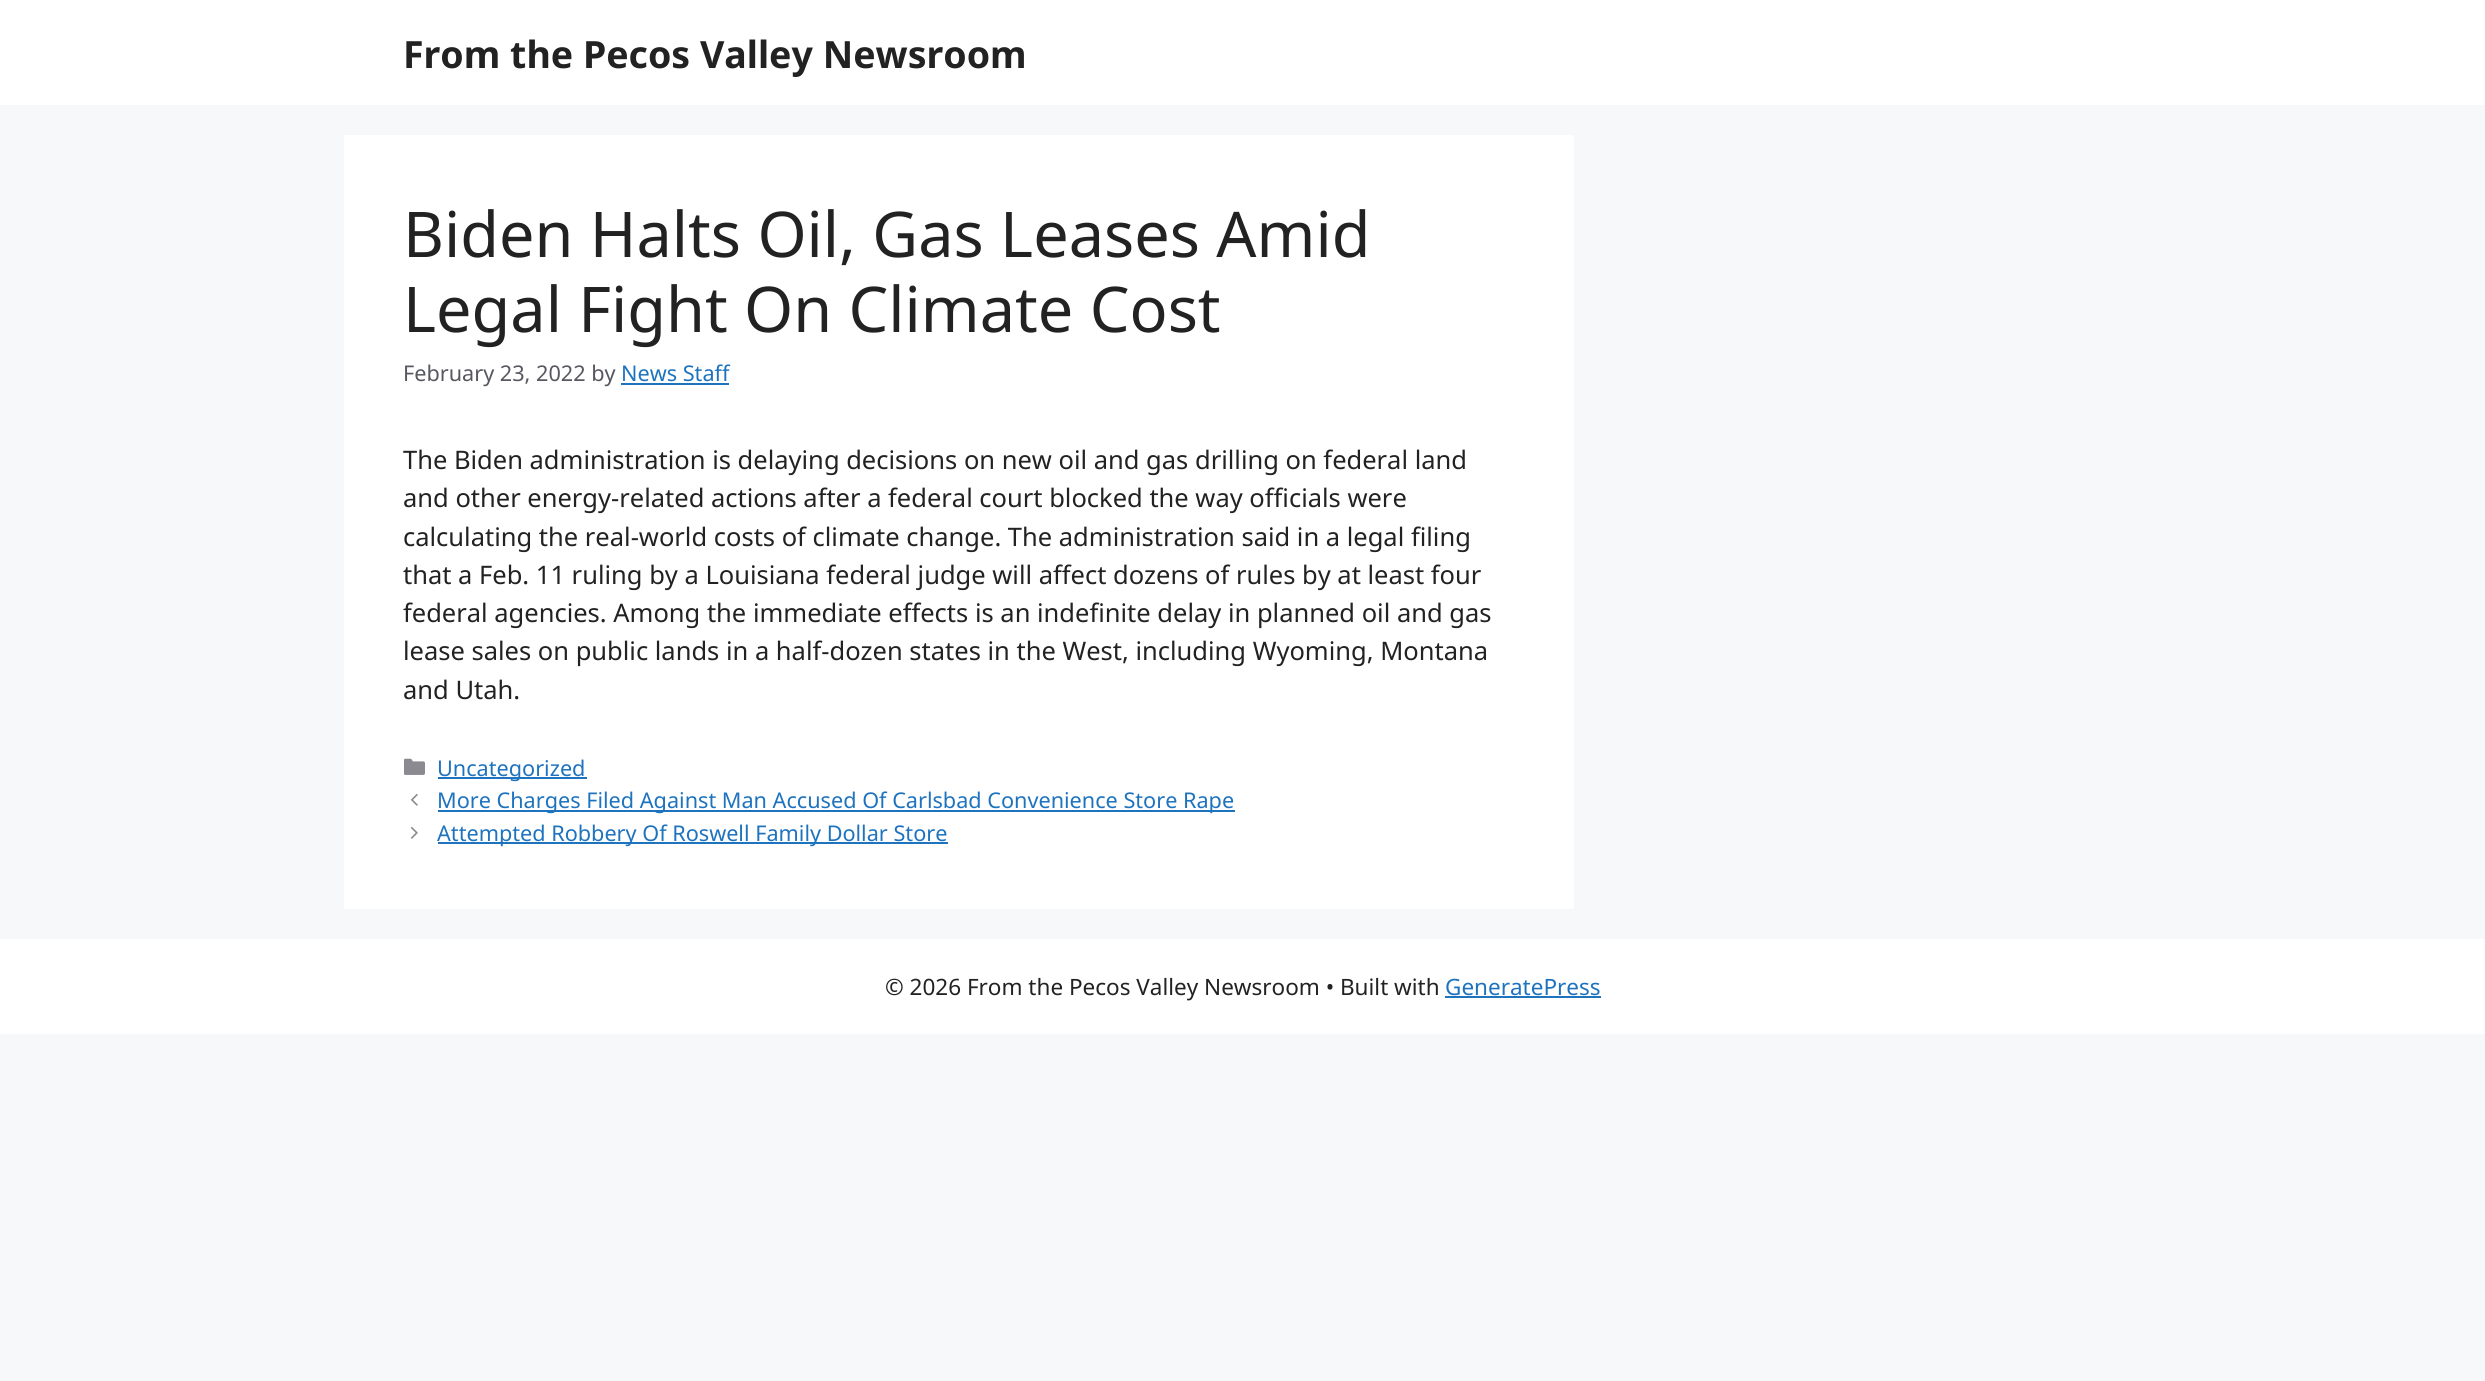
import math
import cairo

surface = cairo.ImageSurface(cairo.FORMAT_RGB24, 2485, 1381)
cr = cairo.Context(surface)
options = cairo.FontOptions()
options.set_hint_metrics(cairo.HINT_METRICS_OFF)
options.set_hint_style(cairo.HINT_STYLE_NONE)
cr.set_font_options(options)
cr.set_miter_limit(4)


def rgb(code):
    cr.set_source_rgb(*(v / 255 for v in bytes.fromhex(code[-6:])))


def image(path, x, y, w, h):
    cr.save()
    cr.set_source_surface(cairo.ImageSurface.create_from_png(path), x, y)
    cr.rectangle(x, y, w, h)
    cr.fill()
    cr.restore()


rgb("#f7f8f9")
cr.paint()
for x, y, w, h, color in [
    (0, 0, 2485, 105, "#ffffff"),
    (344, 135, 1230, 774, "#ffffff"),
    (621, 383, 108, 2, "#1e73be"),
]:
    rgb(color)
    cr.rectangle(x, y, w, h)
    cr.fill()
image("img/1.png", 404, 758, 21, 17)
cr.rectangle(438, 777, 149, 2)
cr.fill()
image("img/2.png", 410, 793, 8, 13)
cr.rectangle(438, 810, 797, 2)
cr.fill()
image("img/3.png", 410, 826, 8, 13)
for x, y, w, h, color in [
    (438, 842, 510, 2, "#1e73be"),
    (0, 939, 2485, 95, "#ffffff"),
    (1445, 996, 156, 2, "#1e73be"),
]:
    rgb(color)
    cr.rectangle(x, y, w, h)
    cr.fill()
cr.select_font_face("Noto Sans", cairo.FONT_SLANT_NORMAL, cairo.FONT_WEIGHT_BOLD)
cr.set_font_size(37.5)
rgb("#222222")
cr.move_to(403, 68)
cr.show_text("From the Pecos Valley Newsroom")
cr.select_font_face("Noto Sans")
cr.set_font_size(63)
cr.move_to(403, 257)
cr.show_text("Biden Halts Oil, Gas Leases Amid")
cr.move_to(403, 332)
cr.show_text("Legal Fight On Climate Cost")
cr.set_font_size(21.65)
rgb("#575760")
cr.move_to(403, 381)
cr.show_text("February 23, 2022 by")
rgb("#1e73be")
cr.move_to(621, 381)
cr.show_text("News Staff")
cr.set_font_size(25.5)
rgb("#222222")
for x, y, s in [
    (403, 469, "The Biden administration is delaying decisions on new oil and gas drilling on federal land"),
    (403, 507, "and other energy-related actions after a federal court blocked the way officials were"),
    (403, 546, "calculating the real-world costs of climate change. The administration said in a legal filing"),
    (403, 584, "that a Feb. 11 ruling by a Louisiana federal judge will affect dozens of rules by at least four"),
    (403, 622, "federal agencies. Among the immediate effects is an indefinite delay in planned oil and gas"),
    (403, 660, "lease sales on public lands in a half-dozen states in the West, including Wyoming, Montana"),
    (403, 699, "and Utah."),
]:
    cr.move_to(x, y)
    cr.show_text(s)
cr.set_font_size(21.65)
rgb("#1e73be")
for x, y, s in [
    (437, 776, "Uncategorized"),
    (437, 808, "More Charges Filed Against Man Accused Of Carlsbad Convenience Store Rape"),
    (437, 841, "Attempted Robbery Of Roswell Family Dollar Store"),
]:
    cr.move_to(x, y)
    cr.show_text(s)
cr.set_font_size(22.5)
rgb("#222222")
cr.move_to(885, 995)
cr.show_text("© 2026 From the Pecos Valley Newsroom • Built with")
rgb("#1e73be")
cr.move_to(1445, 995)
cr.show_text("GeneratePress")
surface.write_to_png("page.png")
